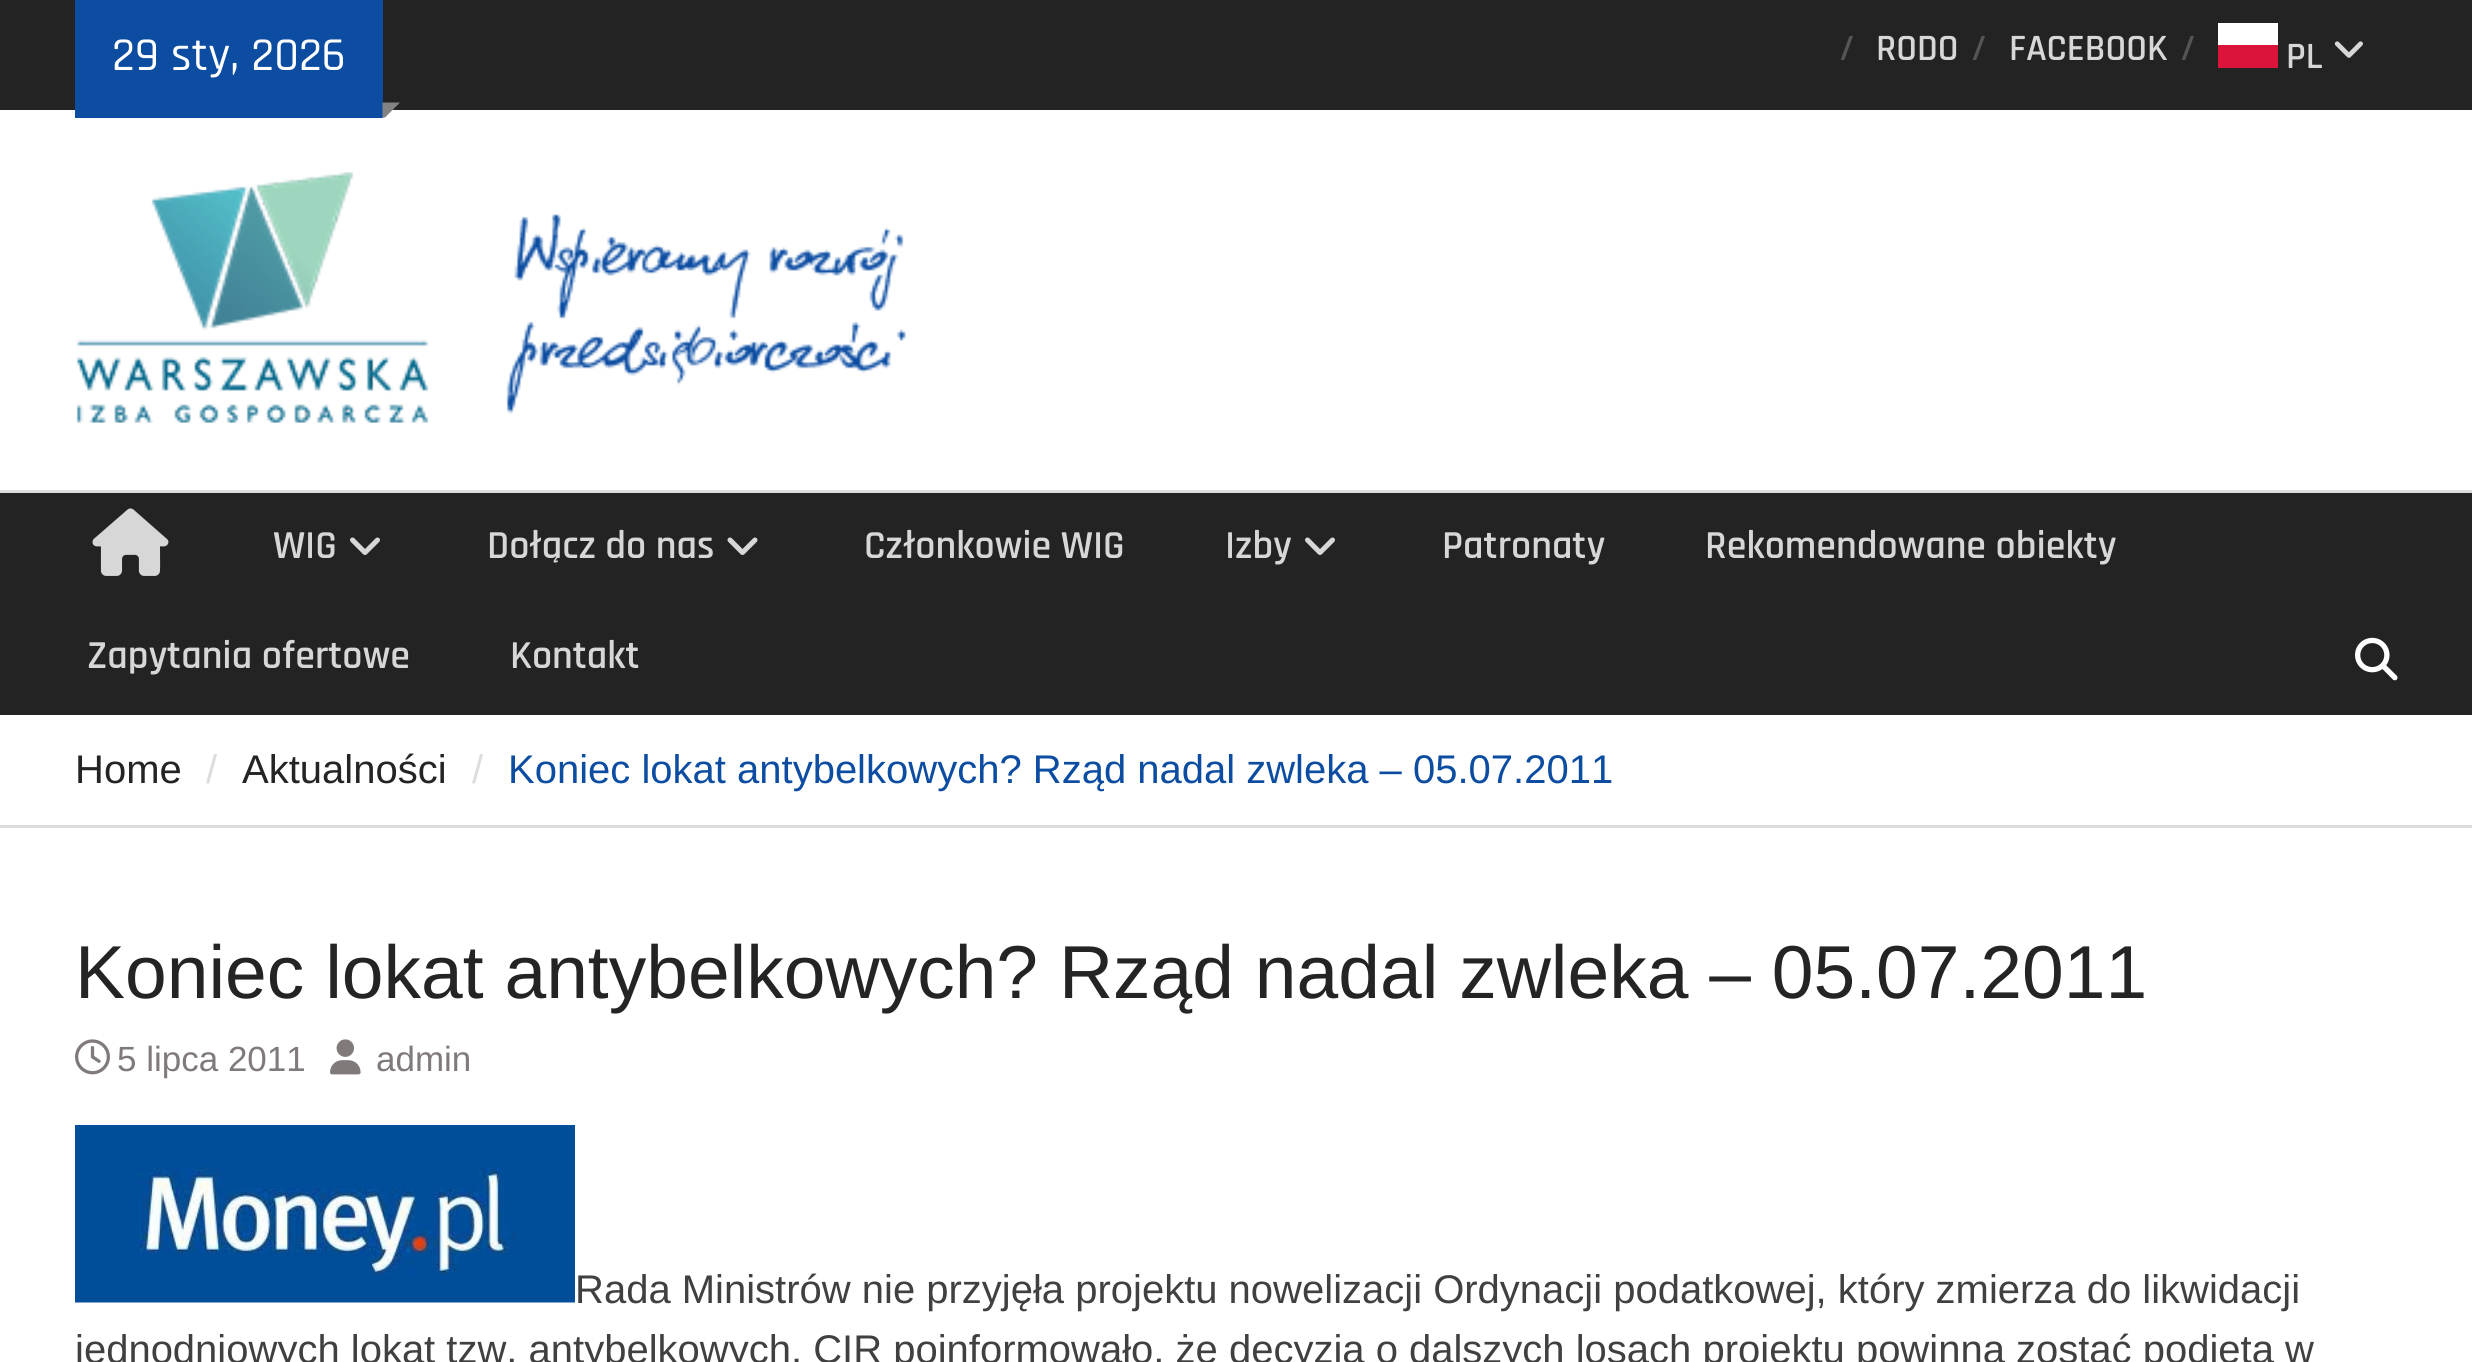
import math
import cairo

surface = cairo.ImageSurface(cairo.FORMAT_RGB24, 2472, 1362)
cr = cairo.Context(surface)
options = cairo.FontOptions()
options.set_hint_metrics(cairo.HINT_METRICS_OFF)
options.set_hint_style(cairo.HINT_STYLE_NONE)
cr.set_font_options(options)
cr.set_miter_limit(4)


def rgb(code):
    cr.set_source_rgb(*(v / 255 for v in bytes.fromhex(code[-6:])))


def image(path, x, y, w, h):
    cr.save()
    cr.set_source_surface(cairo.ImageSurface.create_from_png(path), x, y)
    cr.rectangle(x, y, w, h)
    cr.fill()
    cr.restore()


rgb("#ffffff")
cr.paint()
rgb("#232323")
cr.rectangle(0, 0, 2472, 110)
cr.fill()
rgb("#0c4da2")
cr.rectangle(75, 0, 308, 118)
cr.fill()
rgb("#838383")
cr.new_path()
cr.move_to(382.5, 102.5)
cr.line_to(400, 102.5)
cr.line_to(385, 117.5)
cr.line_to(382.5, 117.5)
cr.close_path()
cr.fill()
rgb("#ffffff")
cr.rectangle(2218, 23, 60, 22)
cr.fill()
image("img/1.png", 2334, 41, 29, 17)
rgb("#dc143c")
cr.rectangle(2218, 45, 60, 23)
cr.fill()
rgb("#dddddd")
cr.rectangle(0, 490, 2472, 3)
cr.fill()
image("img/2.png", 76, 172, 830, 251)
rgb("#232323")
cr.rectangle(0, 493, 2472, 222)
cr.fill()
image("img/3.png", 92, 508, 77, 68)
image("img/4.png", 350, 537, 30, 18)
image("img/5.png", 727, 537, 31, 18)
image("img/4.png", 1305, 537, 30, 18)
image("img/6.png", 2355, 637, 43, 44)
rgb("#dddddd")
cr.rectangle(0, 825, 2472, 3)
cr.fill()
image("img/7.png", 75, 1039, 35, 36)
image("img/8.png", 330, 1039, 31, 36)
image("img/9.png", 75, 1125, 500, 178)
cr.select_font_face("Rajdhani Medium")
cr.set_font_size(47.5)
rgb("#ffffff")
cr.move_to(112, 70)
cr.show_text("29 sty, 2026")
cr.select_font_face("Rajdhani SemiBold")
cr.set_font_size(37.5)
rgb("#555555")
cr.move_to(1839, 60)
cr.show_text("/")
rgb("#d7d7d7")
cr.move_to(1876, 60)
cr.show_text("RODO")
rgb("#555555")
cr.move_to(1971, 60)
cr.show_text("/")
rgb("#d7d7d7")
cr.move_to(2009, 60)
cr.show_text("FACEBOOK")
rgb("#555555")
cr.move_to(2180, 60)
cr.show_text("/")
rgb("#d7d7d7")
cr.move_to(2286, 68)
cr.show_text("PL")
cr.set_font_size(40)
for x, y, s in [
    (273, 558, "WIG"),
    (487, 558, "Dołącz do nas"),
    (864, 558, "Członkowie WIG"),
    (1225, 558, "Izby"),
    (1442, 558, "Patronaty"),
    (1705, 558, "Rekomendowane obiekty"),
    (87, 668, "Zapytania ofertowe"),
    (510, 668, "Kontakt"),
]:
    cr.move_to(x, y)
    cr.show_text(s)
cr.select_font_face("Liberation Sans")
rgb("#242424")
cr.move_to(75, 783)
cr.show_text("Home")
rgb("#dddddd")
cr.move_to(206, 783)
cr.show_text("/")
rgb("#242424")
cr.move_to(242, 783)
cr.show_text("Aktualności")
rgb("#dddddd")
cr.move_to(472, 783)
cr.show_text("/")
rgb("#0c4da2")
cr.move_to(508, 783)
cr.show_text("Koniec lokat antybelkowych? Rząd nadal zwleka – 05.07.2011")
cr.set_font_size(75)
rgb("#242424")
cr.move_to(75, 998)
cr.show_text("Koniec lokat antybelkowych? Rząd nadal zwleka – 05.07.2011")
cr.set_font_size(35)
rgb("#807a7a")
cr.move_to(117, 1071)
cr.show_text("5 lipca 2011")
cr.move_to(376, 1071)
cr.show_text("admin")
cr.set_font_size(40)
rgb("#404040")
cr.move_to(575, 1303)
cr.show_text("Rada Ministrów nie przyjęła projektu nowelizacji Ordynacji podatkowej, który zmierza do likwidacji")
cr.move_to(75, 1363)
cr.show_text("jednodniowych lokat tzw. antybelkowych. CIR poinformowało, że decyzja o dalszych losach projektu powinna zostać podjęta w")
surface.write_to_png("page.png")
